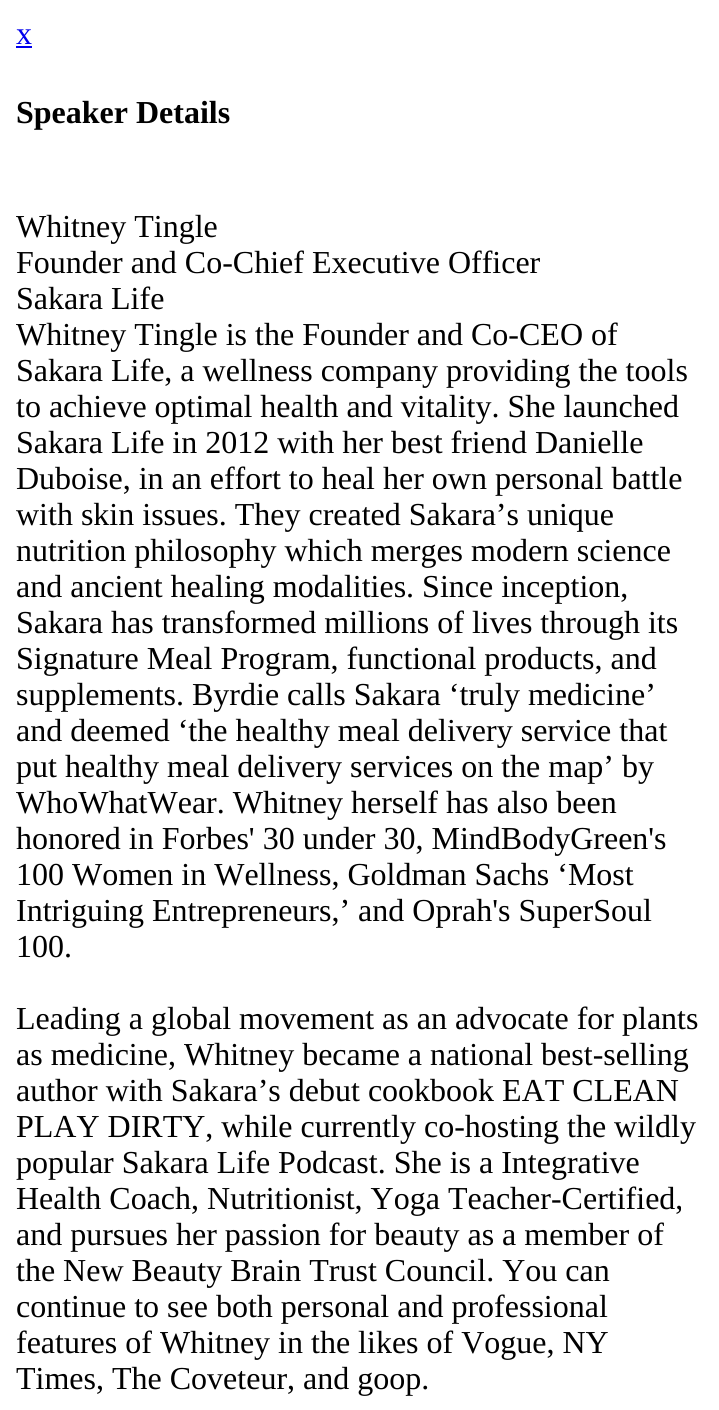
import math
import cairo

surface = cairo.ImageSurface(cairo.FORMAT_RGB24, 719, 1410)
cr = cairo.Context(surface)
options = cairo.FontOptions()
options.set_hint_metrics(cairo.HINT_METRICS_OFF)
options.set_hint_style(cairo.HINT_STYLE_NONE)
cr.set_font_options(options)
cr.set_miter_limit(4)


def rgb(code):
    cr.set_source_rgb(*(v / 255 for v in bytes.fromhex(code[-6:])))


rgb("#ffffff")
cr.paint()
rgb("#0000ee")
cr.rectangle(16, 46, 16, 2)
cr.fill()
cr.select_font_face("Liberation Serif")
cr.set_font_size(32)
cr.move_to(16, 44)
cr.show_text("x")
cr.select_font_face("Liberation Serif", cairo.FONT_SLANT_NORMAL, cairo.FONT_WEIGHT_BOLD)
rgb("#000000")
cr.move_to(16, 123)
cr.show_text("Speaker Details")
cr.select_font_face("Liberation Serif")
for x, y, s in [
    (16, 237, "Whitney Tingle"),
    (16, 273, "Founder and Co-Chief Executive Officer"),
    (16, 309, "Sakara Life"),
    (16, 345, "Whitney Tingle is the Founder and Co-CEO of"),
    (16, 381, "Sakara Life, a wellness company providing the tools"),
    (16, 417, "to achieve optimal health and vitality. She launched"),
    (16, 453, "Sakara Life in 2012 with her best friend Danielle"),
    (16, 489, "Duboise, in an effort to heal her own personal battle"),
    (16, 525, "with skin issues. They created Sakara’s unique"),
    (16, 561, "nutrition philosophy which merges modern science"),
    (16, 597, "and ancient healing modalities. Since inception,"),
    (16, 633, "Sakara has transformed millions of lives through its"),
    (16, 669, "Signature Meal Program, functional products, and"),
    (16, 705, "supplements. Byrdie calls Sakara ‘truly medicine’"),
    (16, 741, "and deemed ‘the healthy meal delivery service that"),
    (16, 777, "put healthy meal delivery services on the map’ by"),
    (16, 813, "WhoWhatWear. Whitney herself has also been"),
    (16, 849, "honored in Forbes' 30 under 30, MindBodyGreen's"),
    (16, 885, "100 Women in Wellness, Goldman Sachs ‘Most"),
    (16, 921, "Intriguing Entrepreneurs,’ and Oprah's SuperSoul"),
    (16, 957, "100."),
    (16, 1029, "Leading a global movement as an advocate for plants"),
    (16, 1065, "as medicine, Whitney became a national best-selling"),
    (16, 1101, "author with Sakara’s debut cookbook EAT CLEAN"),
    (16, 1137, "PLAY DIRTY, while currently co-hosting the wildly"),
    (16, 1173, "popular Sakara Life Podcast. She is a Integrative"),
    (16, 1209, "Health Coach, Nutritionist, Yoga Teacher-Certified,"),
    (16, 1245, "and pursues her passion for beauty as a member of"),
    (16, 1281, "the New Beauty Brain Trust Council. You can"),
    (16, 1317, "continue to see both personal and professional"),
    (16, 1353, "features of Whitney in the likes of Vogue, NY"),
    (16, 1389, "Times, The Coveteur, and goop."),
]:
    cr.move_to(x, y)
    cr.show_text(s)
surface.write_to_png("page.png")
